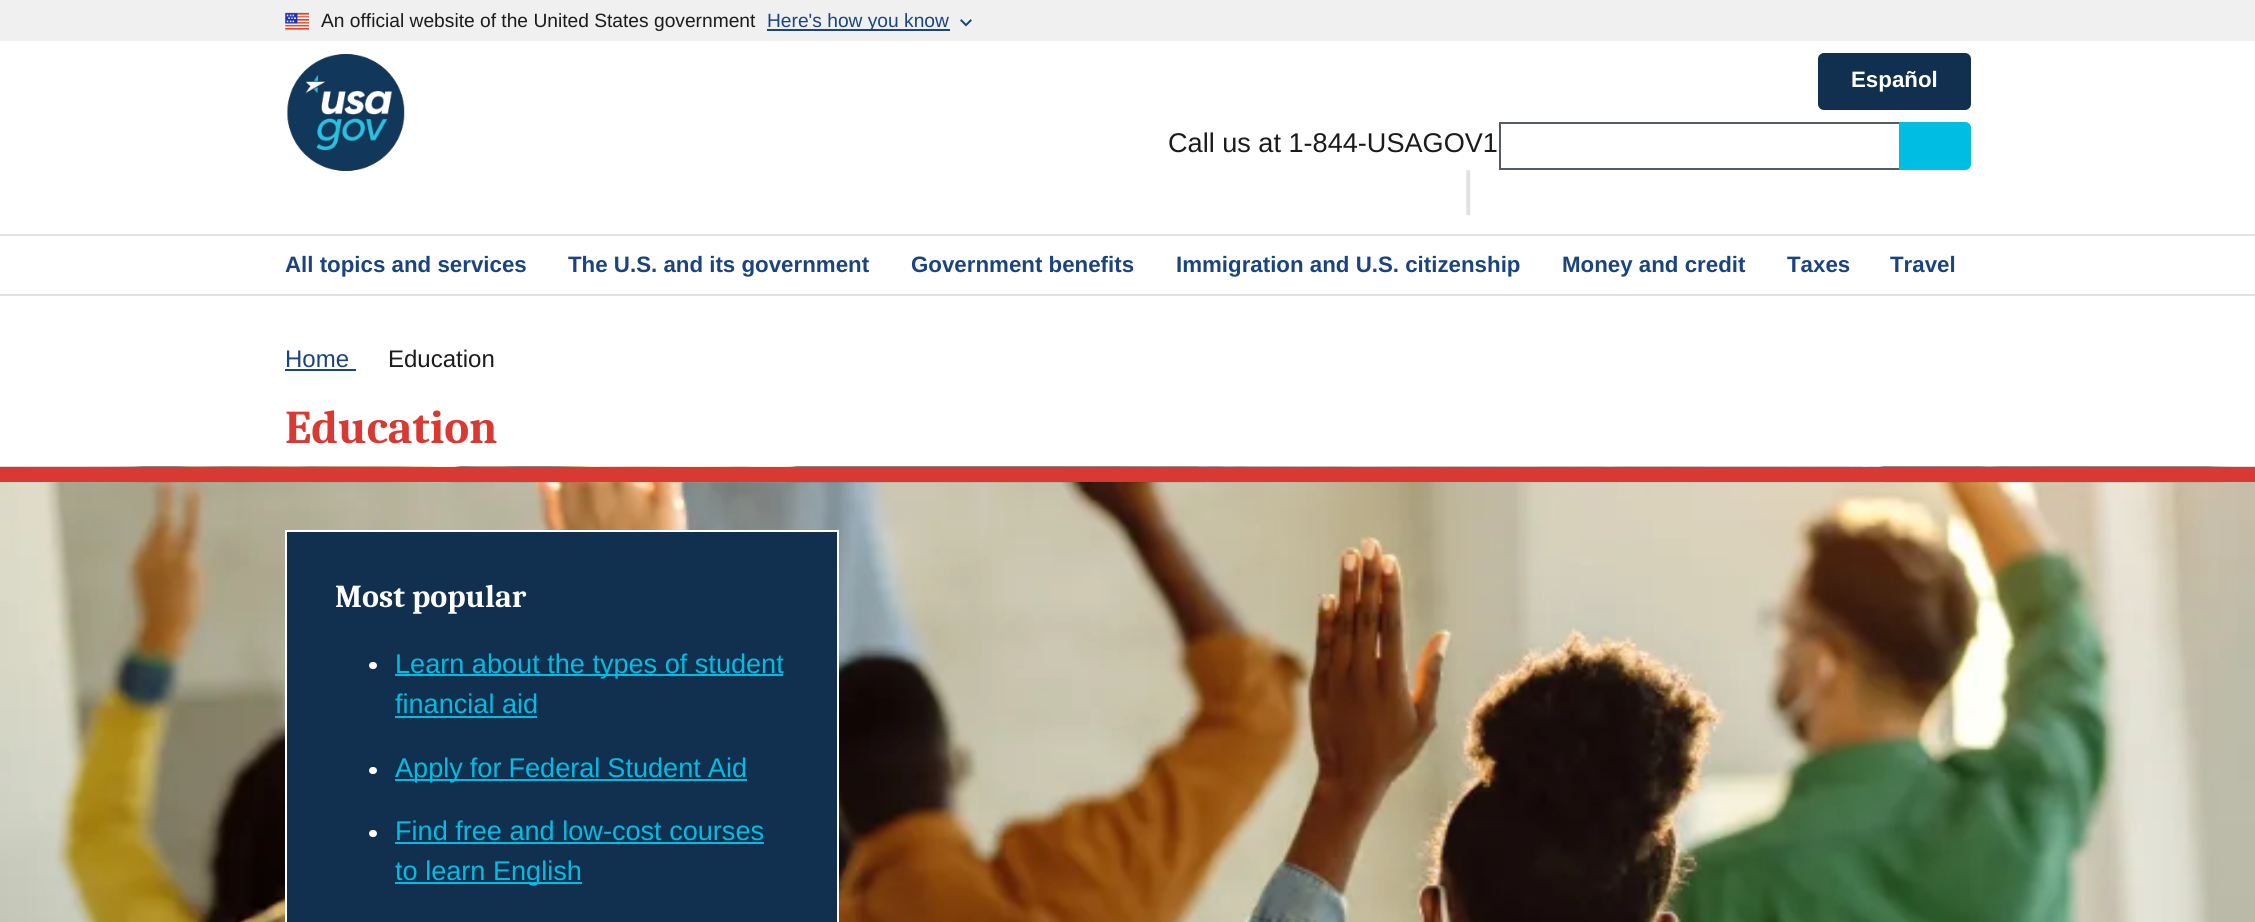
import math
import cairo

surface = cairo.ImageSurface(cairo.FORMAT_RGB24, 2255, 922)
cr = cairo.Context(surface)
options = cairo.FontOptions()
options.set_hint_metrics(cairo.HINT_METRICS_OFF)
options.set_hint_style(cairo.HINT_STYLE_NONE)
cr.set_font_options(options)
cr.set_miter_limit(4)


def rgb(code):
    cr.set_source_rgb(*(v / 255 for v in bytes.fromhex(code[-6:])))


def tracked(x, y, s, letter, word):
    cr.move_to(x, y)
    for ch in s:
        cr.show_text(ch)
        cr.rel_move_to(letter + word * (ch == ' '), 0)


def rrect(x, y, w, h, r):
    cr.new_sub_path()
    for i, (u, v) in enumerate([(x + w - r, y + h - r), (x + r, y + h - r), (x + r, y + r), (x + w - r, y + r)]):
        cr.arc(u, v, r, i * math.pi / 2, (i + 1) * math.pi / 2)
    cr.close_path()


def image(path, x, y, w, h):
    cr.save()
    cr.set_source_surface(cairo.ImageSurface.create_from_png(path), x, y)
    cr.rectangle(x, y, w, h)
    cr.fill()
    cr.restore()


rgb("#ffffff")
cr.paint()
rgb("#f0f0f0")
cr.rectangle(0, 0, 2255, 41)
cr.fill()
image("img/1.png", 285, 12, 24, 18)
rgb("#1a4480")
cr.rectangle(767, 29, 183, 2)
cr.fill()
image("img/2.png", 960, 19, 12, 8)
image("img/3.png", 287, 54, 118, 117)
rgb("#112f4e")
rrect(1818, 53, 153, 57, 6)
cr.fill()
for x, y, w, h, color in [
    (1499, 122, 400, 2, "#565c65"),
    (1499, 168, 400, 2, "#565c65"),
    (1499, 122, 2, 48, "#565c65"),
]:
    rgb(color)
    cr.rectangle(x, y, w, h)
    cr.fill()
rgb("#00bde3")
cr.new_path()
cr.move_to(1899, 122)
cr.line_to(1965, 122)
cr.curve_to(1968.5, 122, 1971, 124.5, 1971, 128)
cr.line_to(1971, 164)
cr.curve_to(1971, 167.5, 1968.5, 170, 1965, 170)
cr.line_to(1899, 170)
cr.close_path()
cr.fill()
for x, y, w, h, color in [
    (0, 234, 2255, 2, "#dfe1e2"),
    (0, 294, 2255, 2, "#dfe1e2"),
    (285, 369, 71, 2, "#1a4480"),
]:
    rgb(color)
    cr.rectangle(x, y, w, h)
    cr.fill()
image("img/4.png", 0, 466, 2255, 456)
rgb("#d83933")
cr.rectangle(0, 467, 2255, 15)
cr.fill()
rgb("#112f4e")
cr.rectangle(286, 531, 552, 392)
cr.fill_preserve()
rgb("#ffffff")
cr.stroke()
rrect(369, 662, 8, 7, 3.5)
cr.fill()
rgb("#00bde3")
cr.rectangle(395, 674, 388, 2)
cr.fill()
cr.rectangle(395, 716, 142, 2)
cr.fill()
rgb("#ffffff")
rrect(369, 767, 8, 7, 3.5)
cr.fill()
rgb("#00bde3")
cr.rectangle(395, 779, 352, 2)
cr.fill()
rgb("#ffffff")
rrect(369, 830, 8, 7, 3.5)
cr.fill()
rgb("#00bde3")
cr.rectangle(395, 842, 369, 2)
cr.fill()
cr.rectangle(395, 882, 187, 2)
cr.fill()
cr.select_font_face("Liberation Sans")
cr.set_font_size(19.2)
rgb("#1b1b1b")
cr.move_to(321, 27)
cr.show_text("An official website of the United States government")
rgb("#1a4480")
cr.move_to(767, 27)
cr.show_text("Here's how you know")
cr.select_font_face("Liberation Sans", cairo.FONT_SLANT_NORMAL, cairo.FONT_WEIGHT_BOLD)
cr.set_font_size(22.3)
rgb("#ffffff")
cr.move_to(1851, 87)
cr.show_text("Español")
cr.select_font_face("Liberation Sans")
cr.set_font_size(27.1)
rgb("#1b1b1b")
cr.move_to(1168, 152)
cr.show_text("Call us at 1-844-USAGOV1")
cr.set_font_size(48)
rgb("#dfe1e2")
cr.move_to(1462, 205)
cr.show_text("|")
cr.select_font_face("Liberation Sans", cairo.FONT_SLANT_NORMAL, cairo.FONT_WEIGHT_BOLD)
cr.set_font_size(22.3)
rgb("#1a4480")
for x, y, s in [
    (285, 272, "All topics and services"),
    (568, 272, "The U.S. and its government"),
    (911, 272, "Government benefits"),
    (1176, 272, "Immigration and U.S. citizenship"),
    (1562, 272, "Money and credit"),
    (1787, 272, "Taxes"),
    (1890, 272, "Travel"),
]:
    cr.move_to(x, y)
    cr.show_text(s)
cr.select_font_face("Liberation Sans")
cr.set_font_size(24)
cr.move_to(285, 367)
cr.show_text("Home")
rgb("#1b1b1b")
cr.move_to(388, 367)
cr.show_text("Education")
cr.select_font_face("Caladea", cairo.FONT_SLANT_NORMAL, cairo.FONT_WEIGHT_BOLD)
cr.set_font_size(47)
rgb("#d83933")
cr.move_to(285, 443)
cr.show_text("Education")
cr.set_font_size(32)
rgb("#ffffff")
cr.move_to(335, 607)
cr.show_text("Most popular")
cr.select_font_face("Liberation Sans")
cr.set_font_size(27.1)
rgb("#00bde3")
cr.move_to(395, 673)
cr.show_text("Learn about the types of student")
cr.move_to(395, 713)
cr.show_text("financial aid")
tracked(395, 777, "Apply for Federal Student Aid", 0, -0.5)
cr.move_to(395, 840)
cr.show_text("Find free and low-cost courses")
cr.move_to(395, 880)
cr.show_text("to learn English")
surface.write_to_png("page.png")
